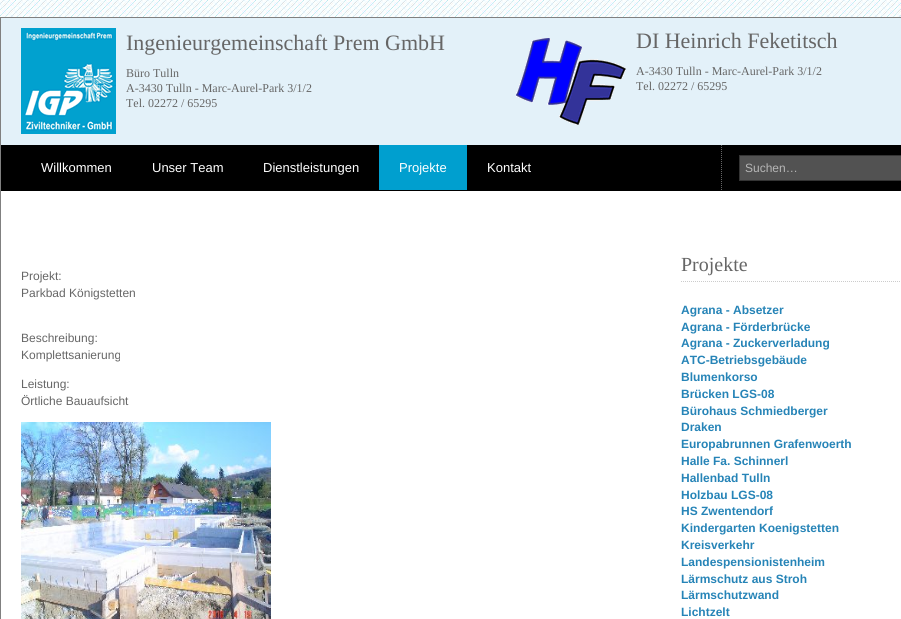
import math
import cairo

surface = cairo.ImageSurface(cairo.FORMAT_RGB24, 901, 619)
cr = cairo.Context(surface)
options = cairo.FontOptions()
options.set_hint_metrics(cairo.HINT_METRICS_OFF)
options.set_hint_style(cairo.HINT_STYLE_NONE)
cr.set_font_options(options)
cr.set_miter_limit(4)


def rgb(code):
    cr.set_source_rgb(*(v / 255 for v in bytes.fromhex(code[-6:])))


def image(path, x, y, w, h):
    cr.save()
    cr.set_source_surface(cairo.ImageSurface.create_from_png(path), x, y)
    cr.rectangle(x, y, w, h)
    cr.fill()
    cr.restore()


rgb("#ffffff")
cr.paint()
image("img/1.png", 0, 0, 901, 17)
cr.rectangle(0.5, 17.5, 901, 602)
rgb("#808080")
cr.set_line_width(1)
cr.stroke()
rgb("#e3f1f9")
cr.rectangle(1, 18, 900, 127)
cr.fill()
image("img/2.png", 21, 28, 95, 106)
image("img/3.png", 516, 38, 110, 87)
rgb("#000000")
cr.rectangle(1, 145, 900, 46)
cr.fill()
rgb("#009fcf")
cr.rectangle(379, 145, 88, 45)
cr.fill()
cr.new_path()
cr.move_to(721.5, 145)
cr.line_to(721.5, 191)
rgb("#666666")
cr.set_dash([1, 1])
cr.stroke()
rgb("#525252")
cr.rectangle(739.5, 155.5, 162, 25)
cr.fill_preserve()
rgb("#343434")
cr.set_dash([])
cr.stroke()
image("img/4.png", 21, 422, 250, 197)
cr.new_path()
cr.move_to(681, 281.5)
cr.line_to(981, 281.5)
rgb("#cccccc")
cr.set_dash([1, 1])
cr.stroke()
cr.select_font_face("Liberation Serif")
cr.set_font_size(22)
rgb("#666666")
cr.move_to(126, 50)
cr.show_text("Ingenieurgemeinschaft Prem GmbH")
cr.set_font_size(12)
for x, y, s in [
    (126, 77, "Büro Tulln"),
    (126, 92, "A-3430 Tulln - Marc-Aurel-Park 3/1/2"),
    (126, 107, "Tel. 02272 / 65295"),
]:
    cr.move_to(x, y)
    cr.show_text(s)
cr.set_font_size(22)
cr.move_to(636, 48)
cr.show_text("DI Heinrich Feketitsch")
cr.set_font_size(12)
cr.move_to(636, 75)
cr.show_text("A-3430 Tulln - Marc-Aurel-Park 3/1/2")
cr.move_to(636, 90)
cr.show_text("Tel. 02272 / 65295")
cr.select_font_face("Liberation Sans")
cr.set_font_size(13)
rgb("#ffffff")
for x, y, s in [
    (41, 172, "Willkommen"),
    (152, 172, "Unser Team"),
    (263, 172, "Dienstleistungen"),
    (399, 172, "Projekte"),
    (487, 172, "Kontakt"),
]:
    cr.move_to(x, y)
    cr.show_text(s)
cr.set_font_size(12)
rgb("#b6b6b6")
cr.move_to(745, 172)
cr.show_text("Suchen…")
rgb("#666666")
for x, y, s in [
    (21, 280, "Projekt:"),
    (21, 297, "Parkbad Königstetten"),
    (21, 342, "Beschreibung:"),
    (21, 359, "Komplettsanierung"),
    (21, 388, "Leistung:"),
    (21, 405, "Örtliche Bauaufsicht"),
]:
    cr.move_to(x, y)
    cr.show_text(s)
cr.select_font_face("Liberation Serif")
cr.set_font_size(20)
cr.move_to(681, 271)
cr.show_text("Projekte")
cr.select_font_face("Liberation Sans", cairo.FONT_SLANT_NORMAL, cairo.FONT_WEIGHT_BOLD)
cr.set_font_size(12)
rgb("#2684b7")
for x, y, s in [
    (681, 314, "Agrana - Absetzer"),
    (681, 331, "Agrana - Förderbrücke"),
    (681, 347, "Agrana - Zuckerverladung"),
    (681, 364, "ATC-Betriebsgebäude"),
    (681, 381, "Blumenkorso"),
    (681, 398, "Brücken LGS-08"),
    (681, 415, "Bürohaus Schmiedberger"),
    (681, 431, "Draken"),
    (681, 448, "Europabrunnen Grafenwoerth"),
    (681, 465, "Halle Fa. Schinnerl"),
    (681, 482, "Hallenbad Tulln"),
    (681, 499, "Holzbau LGS-08"),
    (681, 515, "HS Zwentendorf"),
    (681, 532, "Kindergarten Koenigstetten"),
    (681, 549, "Kreisverkehr"),
    (681, 566, "Landespensionistenheim"),
    (681, 583, "Lärmschutz aus Stroh"),
    (681, 599, "Lärmschutzwand"),
    (681, 616, "Lichtzelt"),
]:
    cr.move_to(x, y)
    cr.show_text(s)
surface.write_to_png("page.png")
